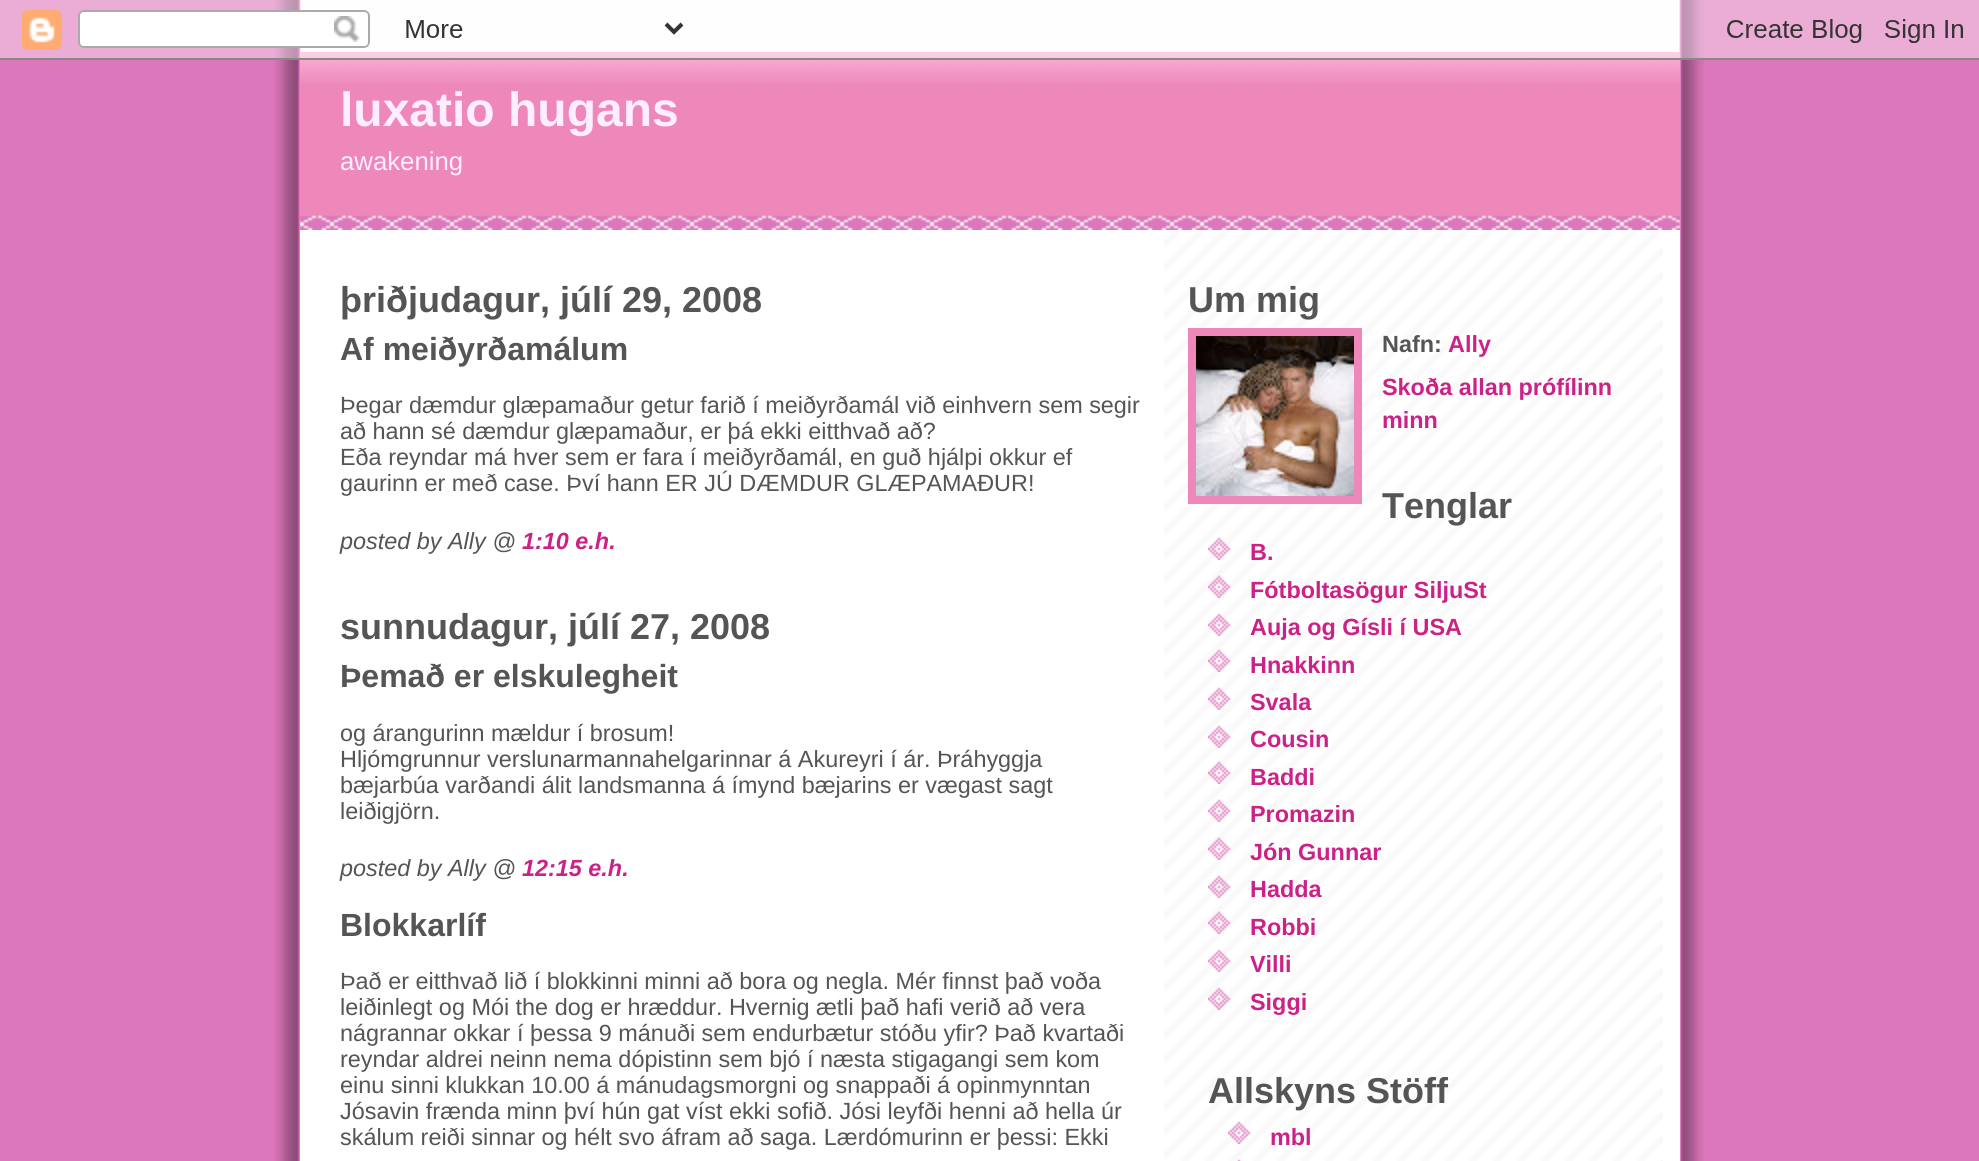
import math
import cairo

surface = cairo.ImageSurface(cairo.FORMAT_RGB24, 1979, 1161)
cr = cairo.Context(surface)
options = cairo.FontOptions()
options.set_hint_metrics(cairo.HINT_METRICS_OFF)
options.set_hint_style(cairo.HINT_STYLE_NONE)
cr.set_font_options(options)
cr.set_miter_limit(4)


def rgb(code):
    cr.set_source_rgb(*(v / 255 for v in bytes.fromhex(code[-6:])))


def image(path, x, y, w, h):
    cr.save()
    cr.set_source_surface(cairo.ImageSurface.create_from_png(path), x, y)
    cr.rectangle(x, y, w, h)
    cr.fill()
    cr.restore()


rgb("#dd77bb")
cr.paint()
image("img/1.png", 274, 0, 1430, 1161)
image("img/5.png", 300, 52, 1380, 31)
image("img/2.png", 0, 0, 1979, 60)
rgb("#ffffff")
cr.rectangle(300, 230, 1380, 931)
cr.fill()
image("img/3.png", 1164, 230, 499, 931)
rgb("#ee88bb")
cr.rectangle(300, 83, 1380, 132)
cr.fill()
image("img/4.png", 300, 215, 1380, 15)
cr.rectangle(1192, 332, 166, 168)
cr.set_line_width(8)
cr.stroke()
image("img/6.png", 1196, 336, 158, 160)
image("img/7.png", 1208, 537, 23, 23)
image("img/8.png", 1208, 575, 23, 23)
image("img/9.png", 1208, 613, 23, 23)
image("img/10.png", 1208, 649, 23, 23)
image("img/11.png", 1208, 687, 23, 23)
image("img/12.png", 1208, 725, 23, 23)
image("img/13.png", 1208, 761, 23, 23)
image("img/14.png", 1208, 799, 23, 23)
image("img/15.png", 1208, 837, 23, 23)
image("img/16.png", 1208, 875, 23, 23)
image("img/8.png", 1208, 911, 23, 23)
image("img/9.png", 1208, 949, 23, 23)
image("img/17.png", 1208, 987, 23, 23)
image("img/9.png", 1228, 1121, 23, 23)
image("img/18.png", 1237, 1159, 4, 2)
cr.select_font_face("Liberation Sans", cairo.FONT_SLANT_NORMAL, cairo.FONT_WEIGHT_BOLD)
cr.set_font_size(48)
rgb("#ffeeff")
cr.move_to(340, 126)
cr.show_text("luxatio hugans")
cr.select_font_face("Liberation Sans")
cr.set_font_size(25.75)
cr.move_to(340, 170)
cr.show_text("awakening")
cr.select_font_face("Liberation Sans", cairo.FONT_SLANT_NORMAL, cairo.FONT_WEIGHT_BOLD)
cr.set_font_size(36)
rgb("#555555")
cr.move_to(340, 312)
cr.show_text("þriðjudagur, júlí 29, 2008")
cr.set_font_size(32)
cr.move_to(340, 360)
cr.show_text("Af meiðyrðamálum")
cr.select_font_face("Liberation Sans")
cr.set_font_size(23.4)
for x, y, s in [
    (340, 413, "Þegar dæmdur glæpamaður getur farið í meiðyrðamál við einhvern sem segir"),
    (340, 439, "að hann sé dæmdur glæpamaður, er þá ekki eitthvað að?"),
    (340, 465, "Eða reyndar má hver sem er fara í meiðyrðamál, en guð hjálpi okkur ef"),
    (340, 491, "gaurinn er með case. Því hann ER JÚ DÆMDUR GLÆPAMAÐUR!"),
]:
    cr.move_to(x, y)
    cr.show_text(s)
cr.select_font_face("Liberation Sans", cairo.FONT_SLANT_ITALIC)
cr.move_to(340, 549)
cr.show_text("posted by Ally @")
cr.select_font_face("Liberation Sans", cairo.FONT_SLANT_ITALIC, cairo.FONT_WEIGHT_BOLD)
rgb("#cc2288")
cr.move_to(522, 549)
cr.show_text("1:10 e.h.")
cr.select_font_face("Liberation Sans", cairo.FONT_SLANT_NORMAL, cairo.FONT_WEIGHT_BOLD)
cr.set_font_size(36)
rgb("#555555")
cr.move_to(340, 639)
cr.show_text("sunnudagur, júlí 27, 2008")
cr.set_font_size(32)
cr.move_to(340, 687)
cr.show_text("Þemað er elskulegheit")
cr.select_font_face("Liberation Sans")
cr.set_font_size(23.4)
for x, y, s in [
    (340, 741, "og árangurinn mældur í brosum!"),
    (340, 767, "Hljómgrunnur verslunarmannahelgarinnar á Akureyri í ár. Þráhyggja"),
    (340, 793, "bæjarbúa varðandi álit landsmanna á ímynd bæjarins er vægast sagt"),
    (340, 819, "leiðigjörn."),
]:
    cr.move_to(x, y)
    cr.show_text(s)
cr.select_font_face("Liberation Sans", cairo.FONT_SLANT_ITALIC)
cr.move_to(340, 876)
cr.show_text("posted by Ally @")
cr.select_font_face("Liberation Sans", cairo.FONT_SLANT_ITALIC, cairo.FONT_WEIGHT_BOLD)
rgb("#cc2288")
cr.move_to(522, 876)
cr.show_text("12:15 e.h.")
cr.select_font_face("Liberation Sans", cairo.FONT_SLANT_NORMAL, cairo.FONT_WEIGHT_BOLD)
cr.set_font_size(32)
rgb("#555555")
cr.move_to(340, 936)
cr.show_text("Blokkarlíf")
cr.select_font_face("Liberation Sans")
cr.set_font_size(23.4)
for x, y, s in [
    (340, 989, "Það er eitthvað lið í blokkinni minni að bora og negla. Mér finnst það voða"),
    (340, 1015, "leiðinlegt og Mói the dog er hræddur. Hvernig ætli það hafi verið að vera"),
    (340, 1041, "nágrannar okkar í þessa 9 mánuði sem endurbætur stóðu yfir? Það kvartaði"),
    (340, 1067, "reyndar aldrei neinn nema dópistinn sem bjó í næsta stigagangi sem kom"),
    (340, 1093, "einu sinni klukkan 10.00 á mánudagsmorgni og snappaði á opinmynntan"),
    (340, 1119, "Jósavin frænda minn því hún gat víst ekki sofið. Jósi leyfði henni að hella úr"),
    (340, 1145, "skálum reiði sinnar og hélt svo áfram að saga. Lærdómurinn er þessi: Ekki"),
]:
    cr.move_to(x, y)
    cr.show_text(s)
cr.select_font_face("Liberation Sans", cairo.FONT_SLANT_NORMAL, cairo.FONT_WEIGHT_BOLD)
cr.set_font_size(36)
cr.move_to(1188, 312)
cr.show_text("Um mig")
cr.set_font_size(23.4)
cr.move_to(1382, 352)
cr.show_text("Nafn:")
rgb("#cc2288")
for x, y, s in [
    (1448, 352, "Ally"),
    (1382, 395, "Skoða allan prófílinn"),
    (1382, 428, "minn"),
]:
    cr.move_to(x, y)
    cr.show_text(s)
cr.set_font_size(36)
rgb("#555555")
cr.move_to(1382, 518)
cr.show_text("Tenglar")
cr.set_font_size(23.4)
rgb("#cc2288")
for x, y, s in [
    (1250, 560, "B."),
    (1250, 598, "Fótboltasögur SiljuSt"),
    (1250, 635, "Auja og Gísli í USA"),
    (1250, 673, "Hnakkinn"),
    (1250, 710, "Svala"),
    (1250, 747, "Cousin"),
    (1250, 785, "Baddi"),
    (1250, 822, "Promazin"),
    (1250, 860, "Jón Gunnar"),
    (1250, 897, "Hadda"),
    (1250, 935, "Robbi"),
    (1250, 972, "Villi"),
    (1250, 1010, "Siggi"),
]:
    cr.move_to(x, y)
    cr.show_text(s)
cr.set_font_size(36)
rgb("#555555")
cr.move_to(1208, 1103)
cr.show_text("Allskyns Stöff")
cr.set_font_size(23.4)
rgb("#cc2288")
cr.move_to(1270, 1145)
cr.show_text("mbl")
surface.write_to_png("page.png")
